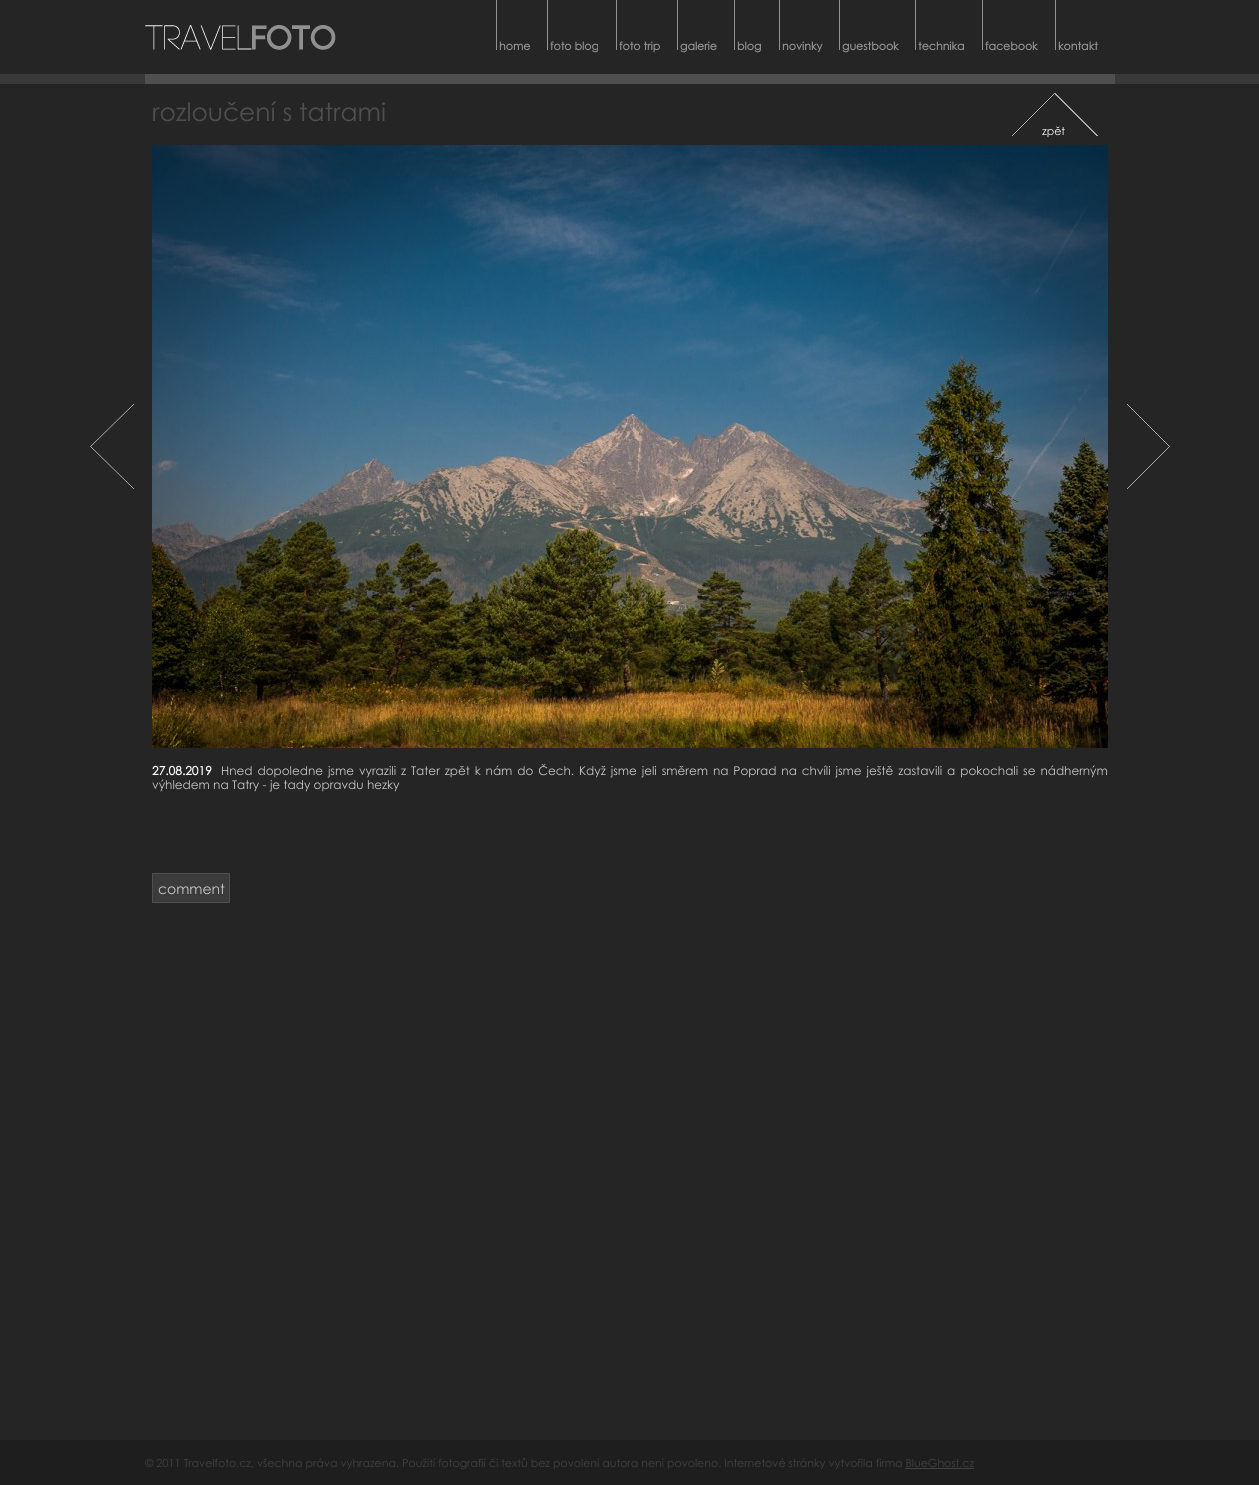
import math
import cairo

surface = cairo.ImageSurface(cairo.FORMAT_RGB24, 1259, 1485)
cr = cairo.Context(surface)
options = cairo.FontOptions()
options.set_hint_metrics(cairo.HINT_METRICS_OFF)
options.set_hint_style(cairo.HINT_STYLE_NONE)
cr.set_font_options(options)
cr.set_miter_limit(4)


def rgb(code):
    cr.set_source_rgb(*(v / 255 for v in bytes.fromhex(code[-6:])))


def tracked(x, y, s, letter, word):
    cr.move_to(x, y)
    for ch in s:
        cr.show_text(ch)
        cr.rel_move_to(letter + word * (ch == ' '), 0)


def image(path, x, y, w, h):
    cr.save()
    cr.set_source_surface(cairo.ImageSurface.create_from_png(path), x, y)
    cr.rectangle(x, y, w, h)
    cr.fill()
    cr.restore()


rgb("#252525")
cr.paint()
rgb("#393939")
cr.rectangle(0, 74, 1259, 10)
cr.fill()
image("img/1.png", 145, 25, 970, 59)
for x, y, w, h, color in [
    (496, 0, 1, 50, "#929292"),
    (547, 0, 1, 50, "#929292"),
    (616, 0, 1, 50, "#929292"),
    (677, 0, 1, 50, "#929292"),
    (734, 0, 1, 50, "#929292"),
    (779, 0, 1, 50, "#929292"),
    (839, 0, 1, 50, "#929292"),
    (915, 0, 1, 50, "#929292"),
    (982, 0, 1, 50, "#929292"),
    (1055, 0, 1, 50, "#929292"),
]:
    rgb(color)
    cr.rectangle(x, y, w, h)
    cr.fill()
image("img/2.png", 1012, 93, 86, 43)
image("img/3.png", 90, 404, 44, 85)
image("img/4.png", 1127, 404, 43, 85)
image("img/5.png", 152, 145, 956, 603)
rgb("#3b3b3b")
cr.rectangle(152.5, 873.5, 77, 29)
cr.fill_preserve()
rgb("#4f4f4f")
cr.set_line_width(1)
cr.stroke()
rgb("#1e1e1e")
cr.rectangle(0, 1440, 1259, 45)
cr.fill()
rgb("#414141")
cr.rectangle(905, 1468, 69, 1)
cr.fill()
cr.select_font_face("Century Gothic", cairo.FONT_SLANT_NORMAL, cairo.FONT_WEIGHT_BOLD)
cr.set_font_size(11)
rgb("#929292")
for x, y, s in [
    (499, 50, "home"),
    (550, 50, "foto blog"),
    (619, 50, "foto trip"),
    (680, 50, "galerie"),
    (737, 50, "blog"),
    (782, 50, "novinky"),
    (842, 50, "guestbook"),
    (918, 50, "technika"),
    (985, 50, "facebook"),
    (1058, 50, "kontakt"),
]:
    cr.move_to(x, y)
    cr.show_text(s)
cr.select_font_face("Century Gothic")
cr.set_font_size(25)
rgb("#4f4f4f")
cr.move_to(152, 121)
cr.show_text("rozloučení s tatrami")
cr.set_font_size(11)
rgb("#ffffff")
cr.move_to(1042, 135)
cr.show_text("zpět")
cr.select_font_face("Century Gothic", cairo.FONT_SLANT_NORMAL, cairo.FONT_WEIGHT_BOLD)
cr.set_font_size(12)
cr.move_to(152, 775)
cr.show_text("27.08.2019")
cr.select_font_face("Century Gothic")
rgb("#c9c9c9")
tracked(221, 775, "Hned dopoledne jsme vyrazili z Tater zpět k nám do Čech. Když jsme jeli směrem na Poprad na chvíli jsme ještě zastavili a pokochali se nádherným", 0, 1.6)
cr.move_to(152, 789)
cr.show_text("výhledem na Tatry - je tady opravdu hezky")
cr.set_font_size(14)
cr.move_to(158, 894)
cr.show_text("comment")
cr.set_font_size(11)
rgb("#414141")
cr.move_to(145, 1467)
cr.show_text("© 2011 Travelfoto.cz, všechna práva vyhrazena. Použití fotografií či textů bez povolení autora není povoleno. Internetové stránky vytvořila firma BlueGhost.cz")
surface.write_to_png("page.png")
